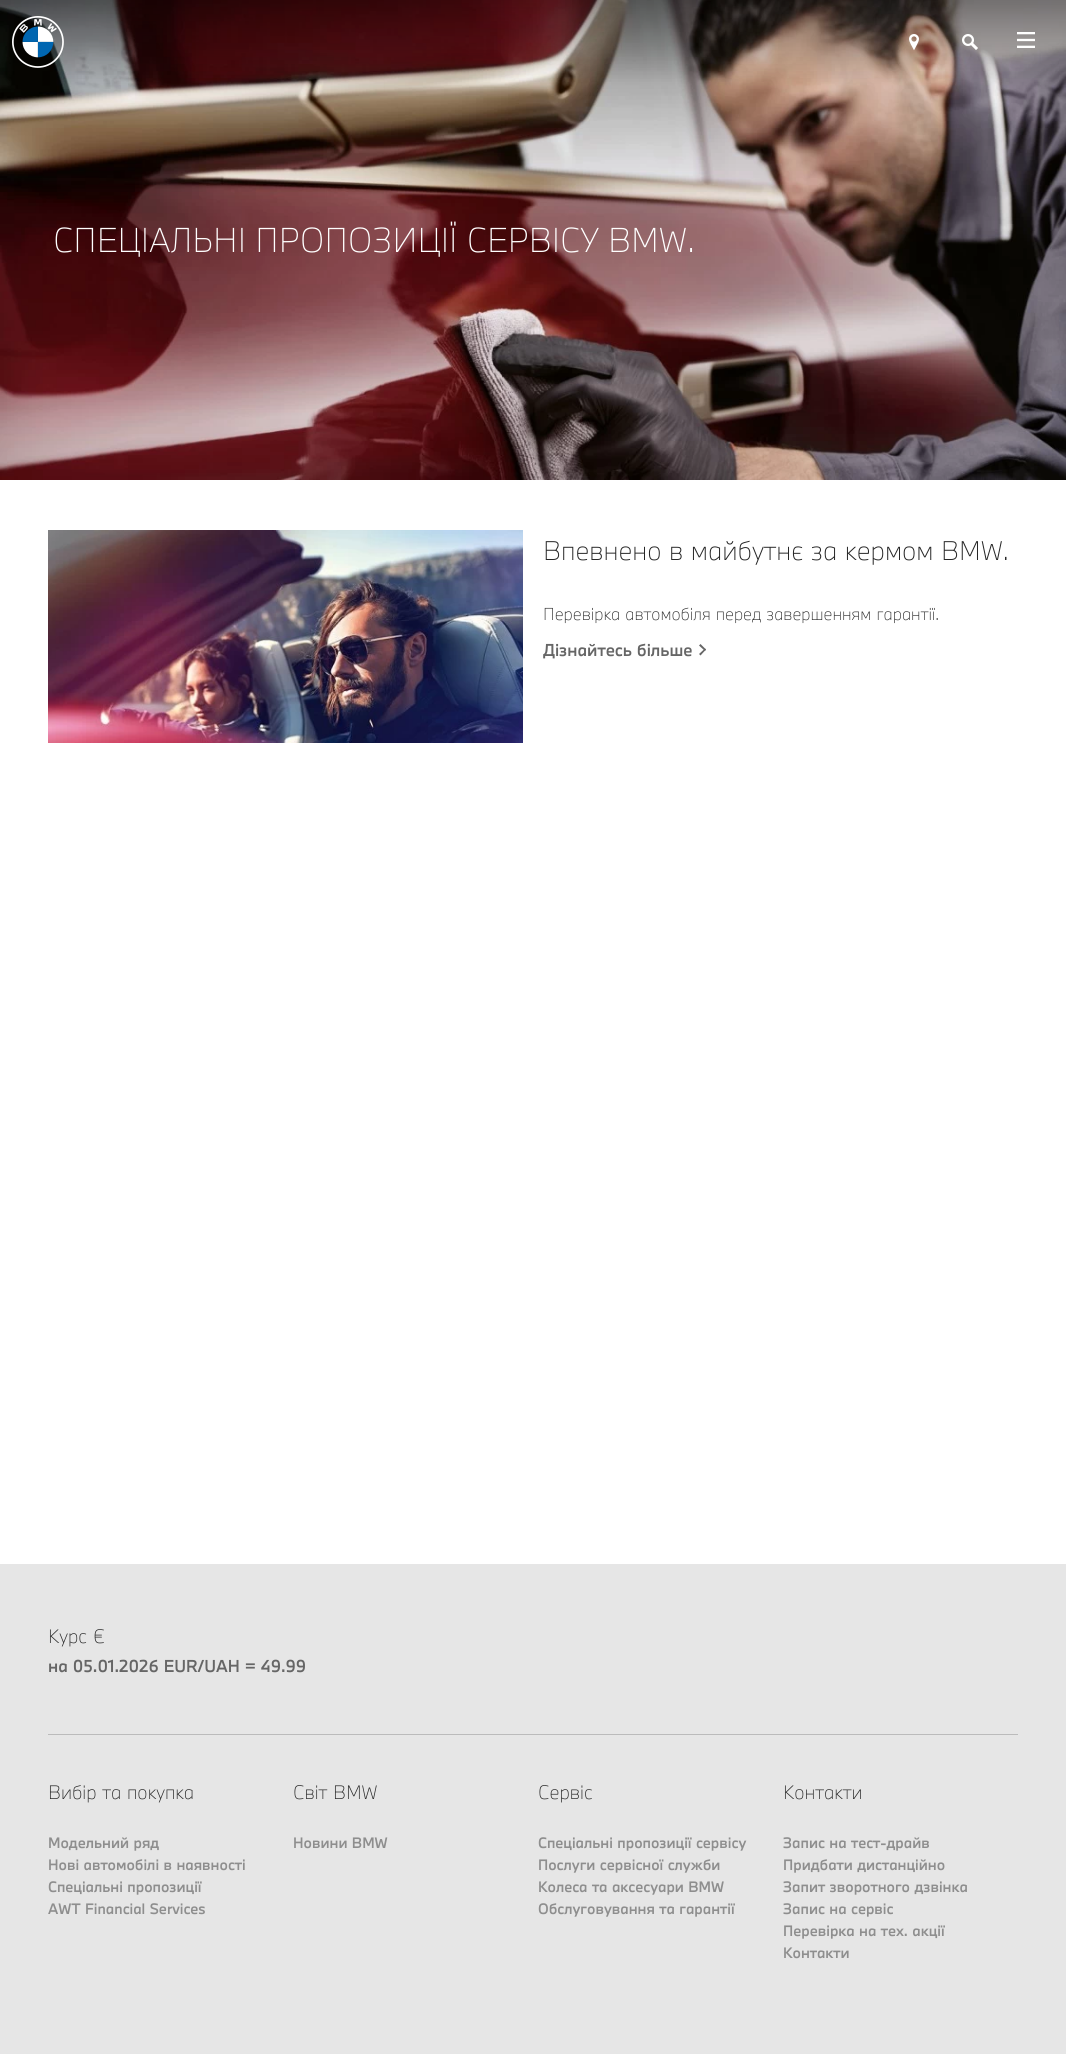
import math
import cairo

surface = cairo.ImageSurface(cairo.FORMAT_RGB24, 1066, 2054)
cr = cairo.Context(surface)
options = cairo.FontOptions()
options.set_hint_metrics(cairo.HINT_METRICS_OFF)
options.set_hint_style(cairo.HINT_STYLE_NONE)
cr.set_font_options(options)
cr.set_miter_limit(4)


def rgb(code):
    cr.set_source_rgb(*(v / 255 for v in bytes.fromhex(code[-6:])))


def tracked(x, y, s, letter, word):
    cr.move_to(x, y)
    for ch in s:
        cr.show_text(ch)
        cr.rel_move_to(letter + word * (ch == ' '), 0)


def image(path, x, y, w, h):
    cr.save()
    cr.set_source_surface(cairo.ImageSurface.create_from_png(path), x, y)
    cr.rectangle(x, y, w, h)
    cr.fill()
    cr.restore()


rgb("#ffffff")
cr.paint()
image("img/5.png", 0, 0, 1066, 480)
image("img/1.png", 12, 16, 52, 52)
image("img/2.png", 909, 34, 10, 16)
image("img/3.png", 962, 34, 16, 16)
image("img/4.png", 1017, 32, 18, 16)
image("img/6.png", 48, 530, 475, 213)
rgb("#666666")
cr.new_path()
cr.move_to(699, 645.5)
cr.line_to(700.5, 644)
cr.line_to(706, 649.5)
cr.line_to(705, 651)
cr.close_path()
cr.fill()
cr.new_path()
cr.move_to(699, 654)
cr.line_to(705, 648.5)
cr.line_to(706, 649.5)
cr.line_to(700.5, 655.5)
cr.close_path()
cr.fill()
rgb("#e6e6e6")
cr.rectangle(0, 1564, 1066, 490)
cr.fill()
rgb("#bbbbbb")
cr.rectangle(48, 1734, 970, 1)
cr.fill()
cr.select_font_face("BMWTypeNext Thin")
cr.set_font_size(32)
rgb("#ffffff")
tracked(53, 252, "СПЕЦІАЛЬНІ ПРОПОЗИЦІЇ СЕРВІСУ BMW.", 0, 1)
cr.set_font_size(25)
rgb("#262626")
tracked(543, 560, "Впевнено в майбутнє за кермом BMW.", 0, 1)
cr.set_font_size(16)
tracked(543, 620, "Перевірка автомобіля перед завершенням гарантії.", 0, 1)
cr.select_font_face("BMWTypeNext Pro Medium")
rgb("#666666")
tracked(543, 656, "Дізнайтесь більше", 0, 1)
cr.select_font_face("BMWTypeNext Thin")
cr.set_font_size(18)
rgb("#262626")
tracked(48, 1643, "Курс €", 0, 1)
cr.select_font_face("BMWTypeNext Pro Medium")
cr.set_font_size(16)
rgb("#666666")
tracked(48, 1672, "на 05.01.2026 EUR/UAH = 49.99", 0, 1)
cr.select_font_face("BMWTypeNext Thin")
cr.set_font_size(18)
rgb("#262626")
tracked(48, 1799, "Вибір та покупка", 0, 1)
cr.select_font_face("BMWTypeNext Pro Medium")
cr.set_font_size(14)
rgb("#8e8e8e")
for x, y, s in [
    (48, 1848, "Модельний ряд"),
    (48, 1870, "Нові автомобілі в наявності"),
    (48, 1892, "Спеціальні пропозиції"),
    (48, 1914, "AWT Financial Services"),
]:
    tracked(x, y, s, 0, 1)
cr.select_font_face("BMWTypeNext Thin")
cr.set_font_size(18)
rgb("#262626")
tracked(293, 1799, "Світ BMW", 0, 1)
cr.select_font_face("BMWTypeNext Pro Medium")
cr.set_font_size(14)
rgb("#8e8e8e")
tracked(293, 1848, "Новини BMW", 0, 1)
cr.select_font_face("BMWTypeNext Thin")
cr.set_font_size(18)
rgb("#262626")
cr.move_to(538, 1799)
cr.show_text("Сервіс")
cr.select_font_face("BMWTypeNext Pro Medium")
cr.set_font_size(14)
rgb("#8e8e8e")
for x, y, s in [
    (538, 1848, "Спеціальні пропозиції сервісу"),
    (538, 1870, "Послуги сервісної служби"),
    (538, 1892, "Колеса та аксесуари BMW"),
    (538, 1914, "Обслуговування та гарантії"),
]:
    tracked(x, y, s, 0, 1)
cr.select_font_face("BMWTypeNext Thin")
cr.set_font_size(18)
rgb("#262626")
cr.move_to(783, 1799)
cr.show_text("Контакти")
cr.select_font_face("BMWTypeNext Pro Medium")
cr.set_font_size(14)
rgb("#8e8e8e")
for x, y, s in [
    (783, 1848, "Запис на тест-драйв"),
    (783, 1870, "Придбати дистанційно"),
    (783, 1892, "Запит зворотного дзвінка"),
    (783, 1914, "Запис на сервіс"),
    (783, 1936, "Перевірка на тех. акції"),
]:
    tracked(x, y, s, 0, 1)
cr.move_to(783, 1958)
cr.show_text("Контакти")
surface.write_to_png("page.png")
